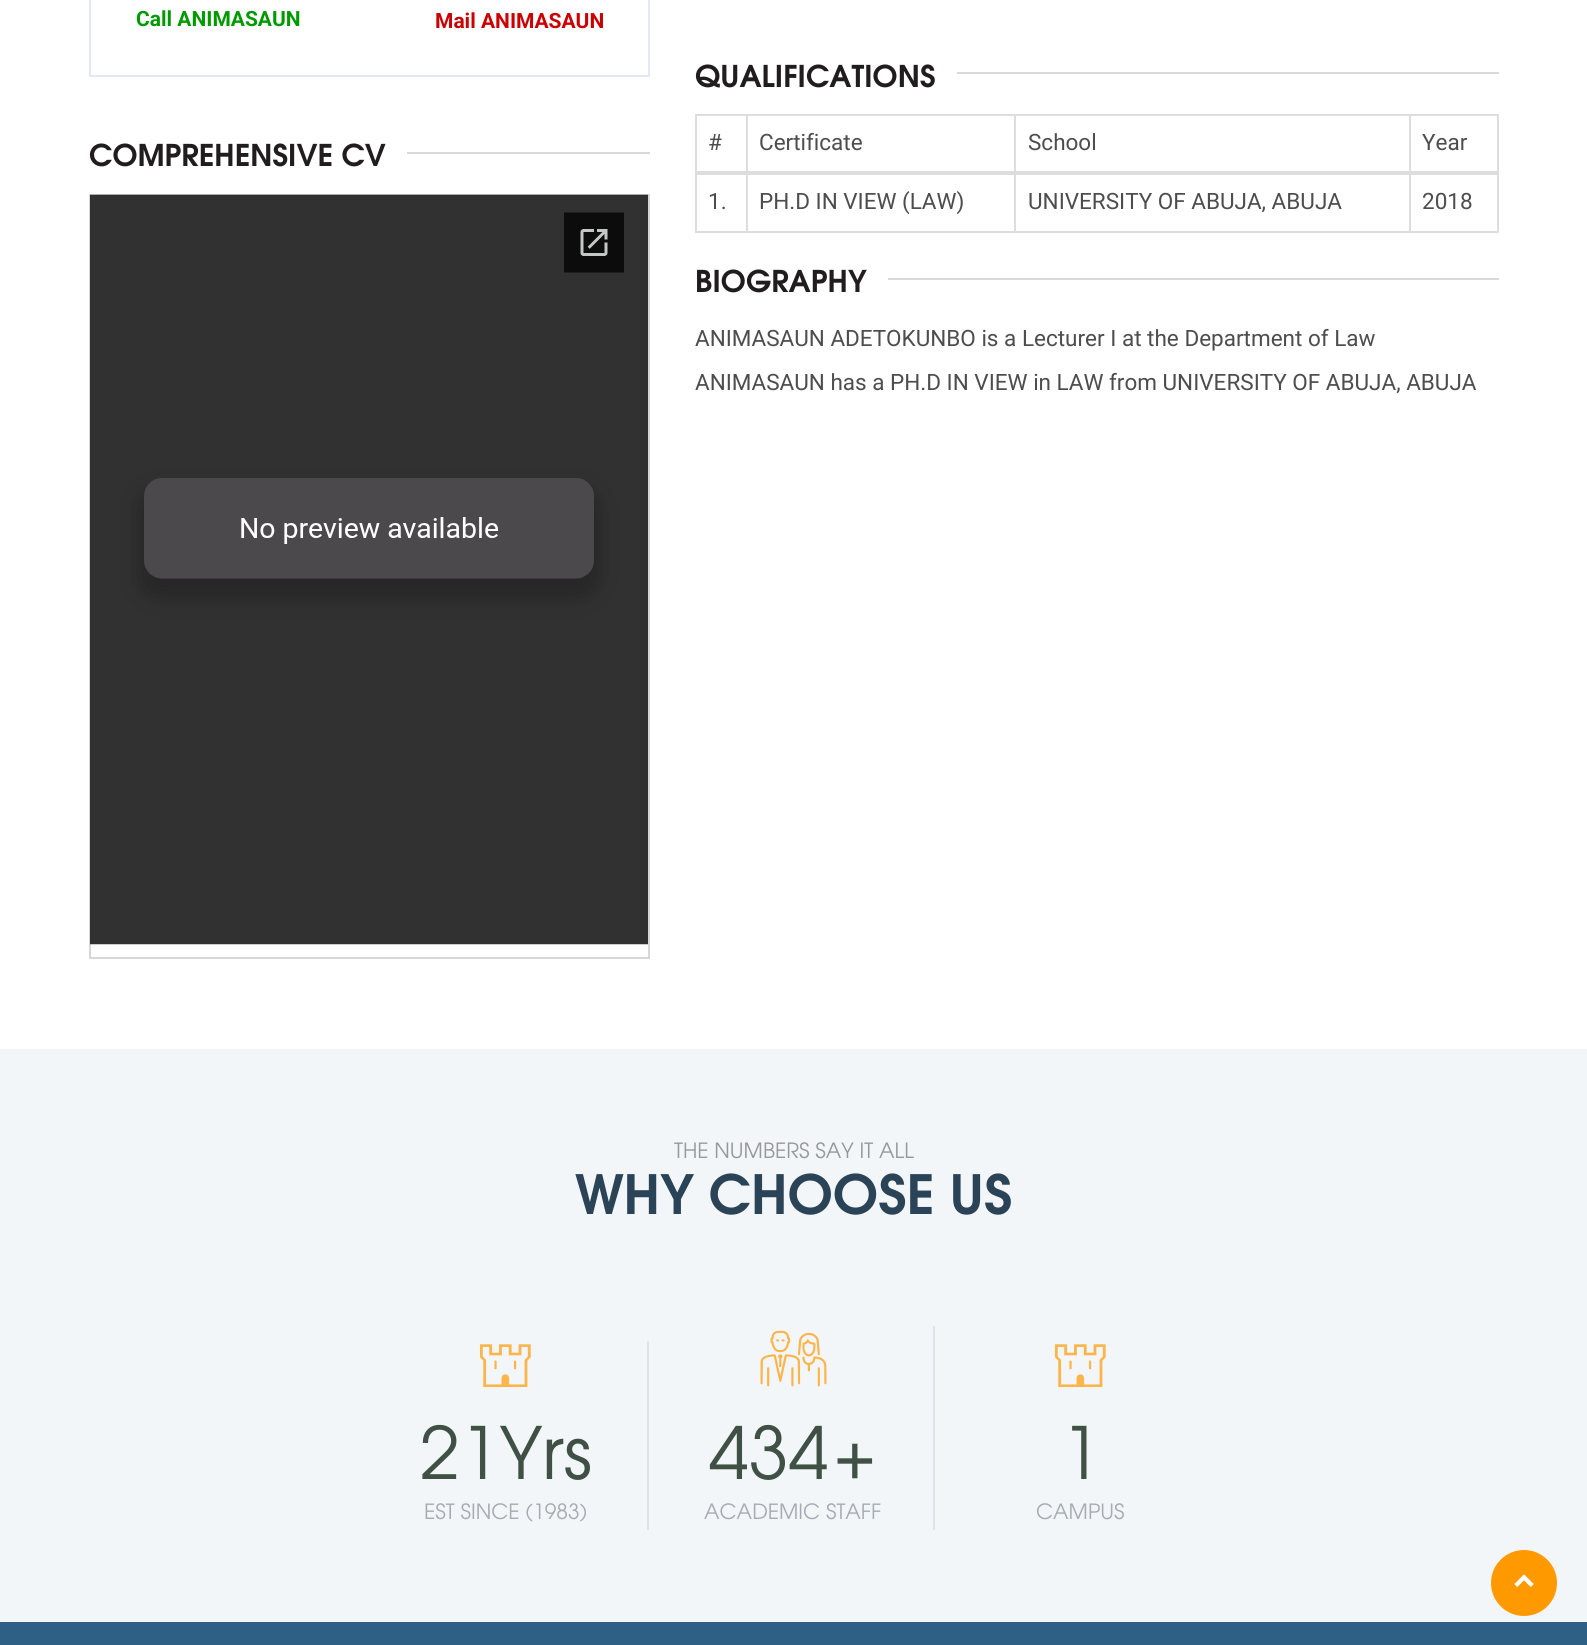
import math
import cairo

surface = cairo.ImageSurface(cairo.FORMAT_RGB24, 1587, 1645)
cr = cairo.Context(surface)
options = cairo.FontOptions()
options.set_hint_metrics(cairo.HINT_METRICS_OFF)
options.set_hint_style(cairo.HINT_STYLE_NONE)
cr.set_font_options(options)
cr.set_miter_limit(4)


def rgb(code):
    cr.set_source_rgb(*(v / 255 for v in bytes.fromhex(code[-6:])))


def image(path, x, y, w, h):
    cr.save()
    cr.set_source_surface(cairo.ImageSurface.create_from_png(path), x, y)
    cr.rectangle(x, y, w, h)
    cr.fill()
    cr.restore()


rgb("#ffffff")
cr.paint()
cr.rectangle(90, -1, 559, 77)
rgb("#e6e6fa")
cr.stroke()
rgb("#d8d8d8")
cr.rectangle(407, 152, 243, 2)
cr.fill()
cr.rectangle(90, 195, 559, 763)
rgb("#d7d7d7")
cr.stroke()
image("img/1.png", 90, 194, 558, 751)
for x, y, w, h, color in [
    (957, 72, 542, 2, "#d8d8d8"),
    (695, 114, 804, 2, "#dddddd"),
    (1497, 114, 2, 119, "#dddddd"),
    (695, 231, 804, 2, "#dddddd"),
    (695, 114, 2, 119, "#dddddd"),
    (1409, 174, 90, 1, "#dddddd"),
    (1409, 114, 2, 119, "#dddddd"),
    (1014, 174, 396, 1, "#dddddd"),
    (1014, 114, 2, 119, "#dddddd"),
    (746, 174, 270, 1, "#dddddd"),
    (746, 114, 2, 119, "#dddddd"),
    (695, 171, 804, 3, "#dddddd"),
    (695, 174, 52, 1, "#dddddd"),
    (888, 278, 611, 2, "#d8d8d8"),
    (0, 1049, 1587, 573, "#f3f6f8"),
    (647, 1341, 2, 189, "#dde5e9"),
    (933, 1326, 2, 204, "#dde5e9"),
]:
    rgb(color)
    cr.rectangle(x, y, w, h)
    cr.fill()
image("img/2.png", 760, 1330, 67, 57)
rgb("#ff9900")
cr.arc(1524, 1583, 33, 0, 2 * math.pi)
cr.fill()
image("img/3.png", 1514, 1574, 20, 13)
rgb("#2e5f85")
cr.rectangle(0, 1622, 1587, 23)
cr.fill()
cr.select_font_face("Roboto", cairo.FONT_SLANT_NORMAL, cairo.FONT_WEIGHT_BOLD)
cr.set_font_size(21)
rgb("#009900")
cr.move_to(136, 26)
cr.show_text("Call ANIMASAUN")
rgb("#cc0000")
cr.move_to(435, 28)
cr.show_text("Mail ANIMASAUN")
cr.select_font_face("TeX Gyre Adventor", cairo.FONT_SLANT_NORMAL, cairo.FONT_WEIGHT_BOLD)
cr.set_font_size(30)
rgb("#211d1e")
cr.move_to(89, 166)
cr.show_text("COMPREHENSIVE CV")
cr.move_to(695, 87)
cr.show_text("QUALIFICATIONS")
cr.select_font_face("Roboto")
cr.set_font_size(22.5)
rgb("#4d4d4d")
for x, y, s in [
    (708, 150, "#"),
    (759, 150, "Certificate"),
    (1028, 150, "School"),
    (1422, 150, "Year"),
    (708, 209, "1."),
    (759, 209, "PH.D IN VIEW (LAW)"),
    (1028, 209, "UNIVERSITY OF ABUJA, ABUJA"),
    (1422, 209, "2018"),
]:
    cr.move_to(x, y)
    cr.show_text(s)
cr.select_font_face("TeX Gyre Adventor", cairo.FONT_SLANT_NORMAL, cairo.FONT_WEIGHT_BOLD)
cr.set_font_size(30)
rgb("#211d1e")
cr.move_to(695, 292)
cr.show_text("BIOGRAPHY")
cr.select_font_face("Roboto")
cr.set_font_size(22.5)
rgb("#4d4d4d")
cr.move_to(695, 346)
cr.show_text("ANIMASAUN ADETOKUNBO is a Lecturer I at the Department of Law")
cr.move_to(695, 390)
cr.show_text("ANIMASAUN has a PH.D IN VIEW in LAW from UNIVERSITY OF ABUJA, ABUJA")
cr.select_font_face("TeX Gyre Adventor")
cr.set_font_size(21)
rgb("#97989a")
cr.move_to(674, 1158)
cr.show_text("THE NUMBERS SAY IT ALL")
cr.select_font_face("TeX Gyre Adventor", cairo.FONT_SLANT_NORMAL, cairo.FONT_WEIGHT_BOLD)
cr.set_font_size(54)
rgb("#2a4356")
cr.move_to(575, 1214)
cr.show_text("WHY CHOOSE US")
cr.select_font_face("STIX Two Math")
cr.set_font_size(66)
rgb("#fbb54a")
cr.move_to(475, 1387)
cr.show_text("⛫")
cr.select_font_face("TeX Gyre Adventor")
cr.set_font_size(72)
rgb("#3f5044")
cr.move_to(420, 1479)
cr.show_text("21Yrs")
cr.set_font_size(21)
rgb("#a4acb2")
cr.move_to(424, 1519)
cr.show_text("EST SINCE (1983)")
cr.set_font_size(72)
rgb("#3f5044")
cr.move_to(709, 1479)
cr.show_text("434")
cr.move_to(833, 1479)
cr.show_text("+")
cr.set_font_size(21)
rgb("#a4acb2")
cr.move_to(704, 1519)
cr.show_text("ACADEMIC STAFF")
cr.select_font_face("STIX Two Math")
cr.set_font_size(66)
rgb("#fbb54a")
cr.move_to(1050, 1387)
cr.show_text("⛫")
cr.select_font_face("TeX Gyre Adventor")
cr.set_font_size(72)
rgb("#3f5044")
cr.move_to(1061, 1479)
cr.show_text("1")
cr.set_font_size(21)
rgb("#a4acb2")
cr.move_to(1036, 1519)
cr.show_text("CAMPUS")
surface.write_to_png("page.png")
